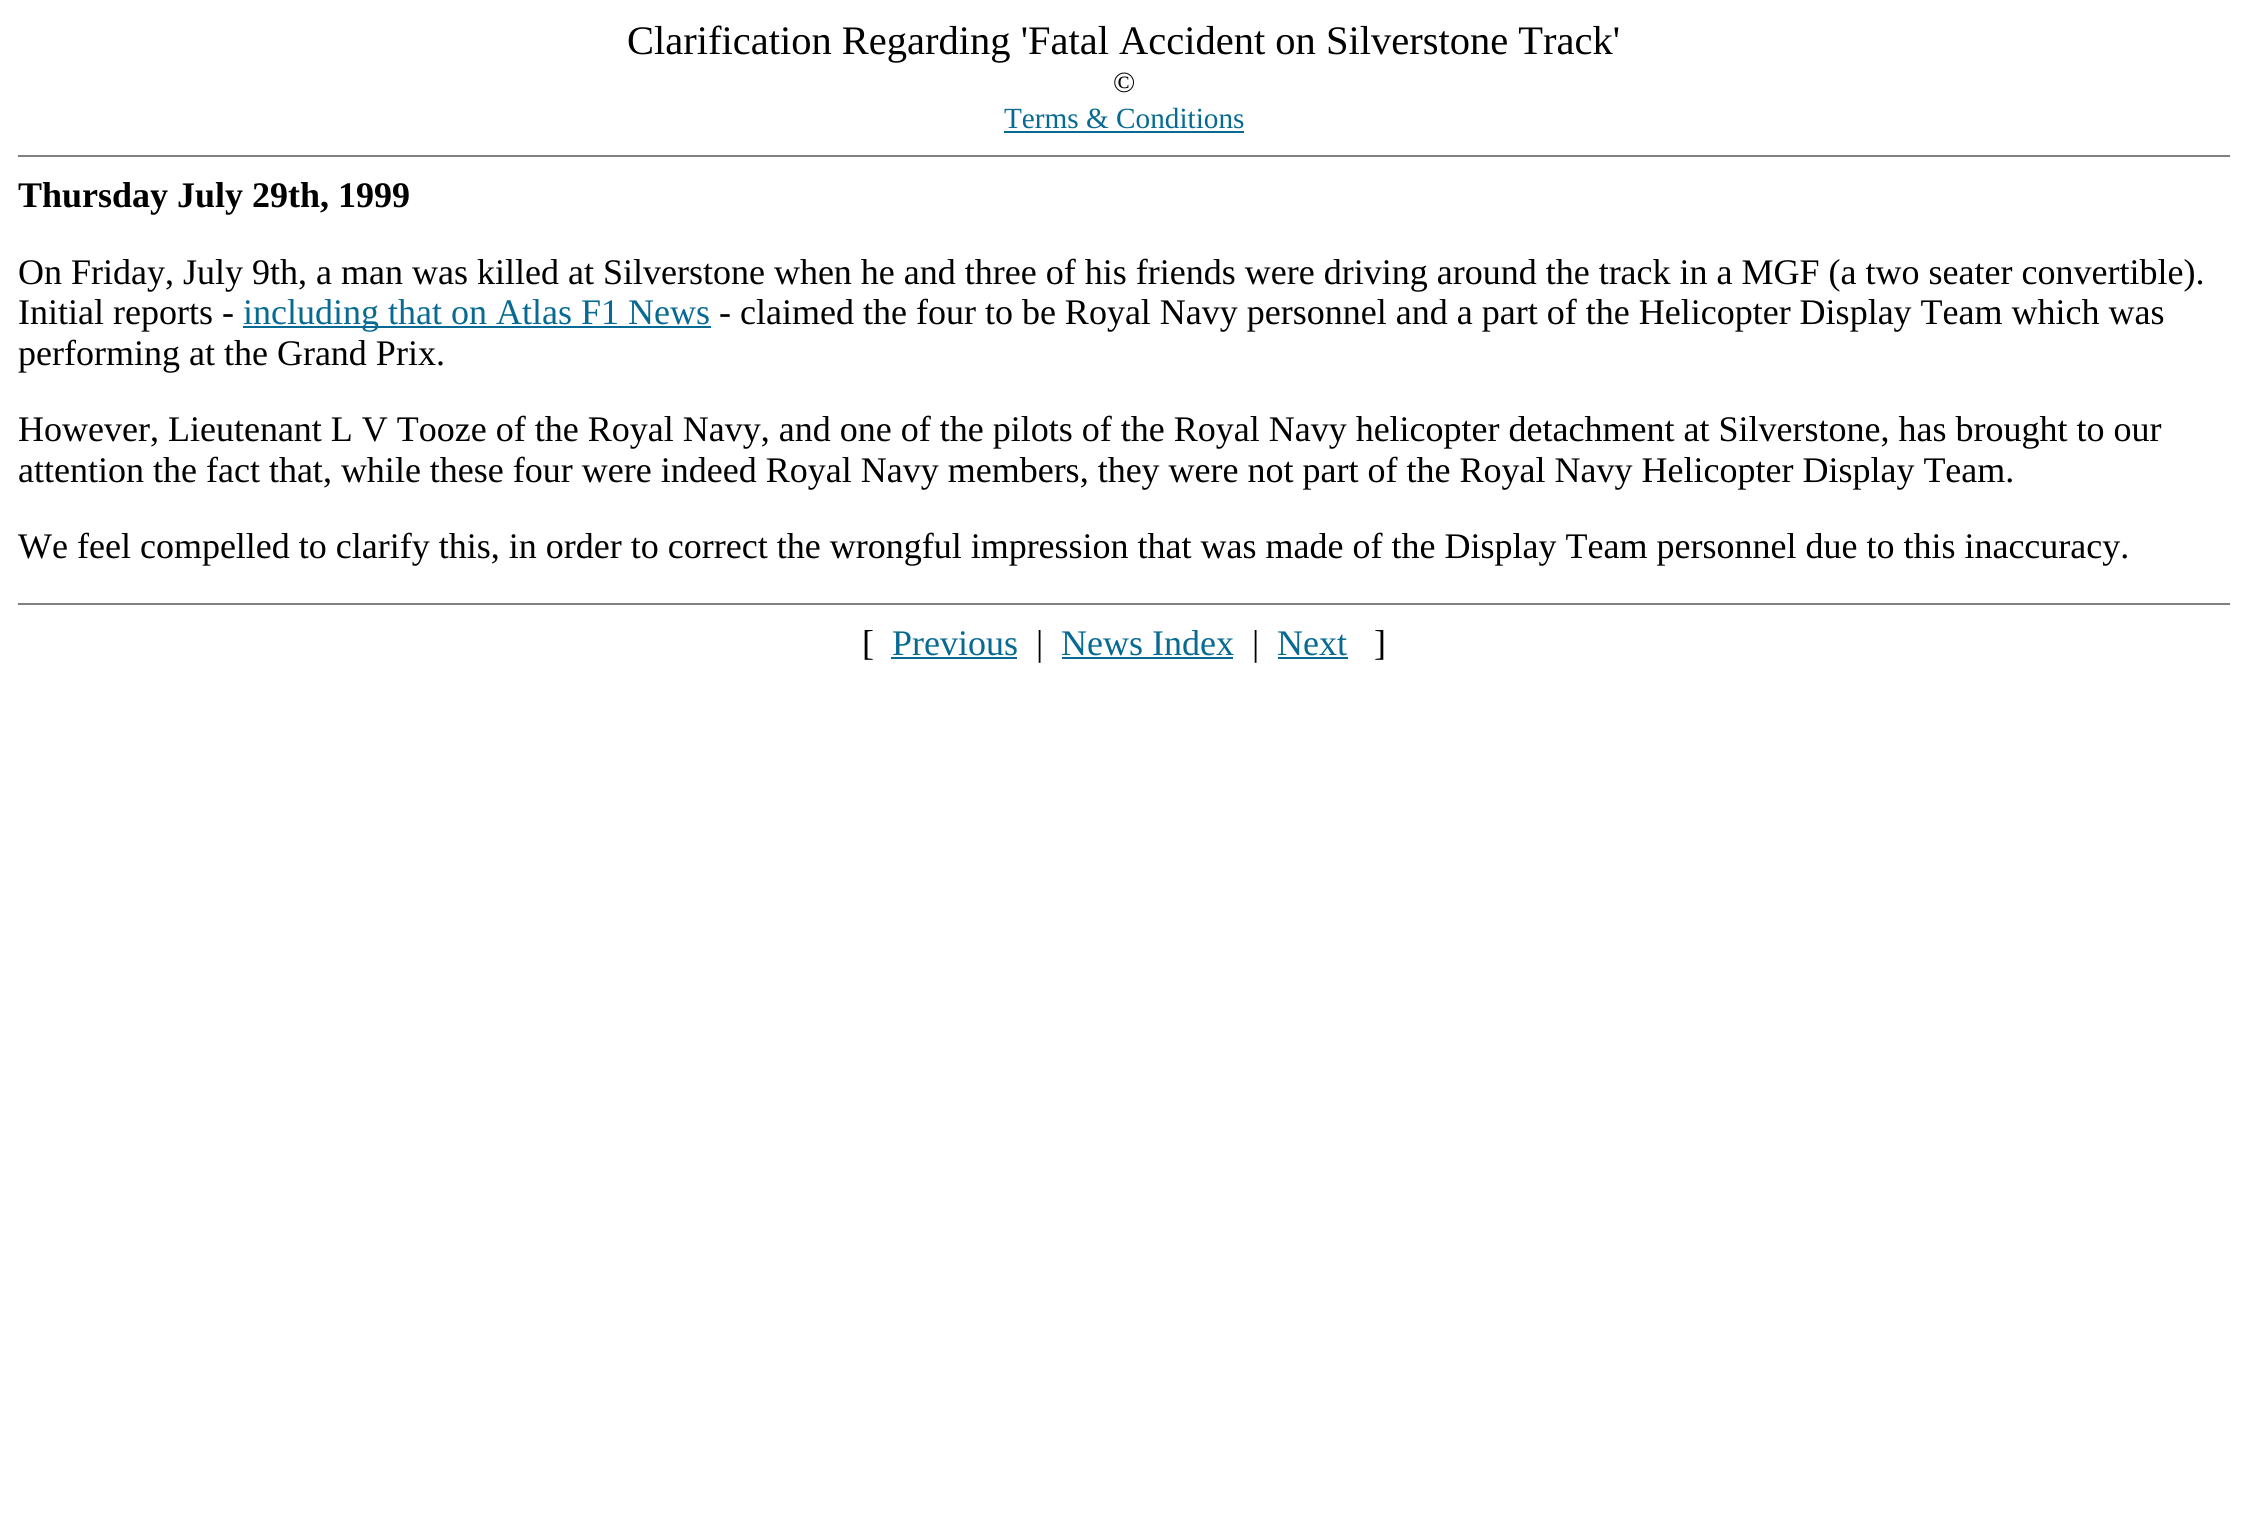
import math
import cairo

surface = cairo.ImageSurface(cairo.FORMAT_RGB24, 2246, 1531)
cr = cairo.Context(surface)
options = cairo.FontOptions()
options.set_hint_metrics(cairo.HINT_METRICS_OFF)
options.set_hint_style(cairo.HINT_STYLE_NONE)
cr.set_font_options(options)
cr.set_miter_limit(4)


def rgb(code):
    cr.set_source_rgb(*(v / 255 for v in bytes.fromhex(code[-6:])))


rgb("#ffffff")
cr.paint()
for x, y, w, h, color in [
    (1004, 131, 240, 2, "#066a93"),
    (18, 155, 2212, 2, "#808080"),
    (243, 326, 468, 2, "#066a93"),
    (18, 603, 2212, 2, "#808080"),
    (891, 657, 126, 2, "#066a93"),
    (1062, 657, 171, 2, "#066a93"),
    (1278, 657, 70, 2, "#066a93"),
]:
    rgb(color)
    cr.rectangle(x, y, w, h)
    cr.fill()
cr.select_font_face("Liberation Serif")
cr.set_font_size(40.5)
rgb("#000000")
cr.move_to(627, 54)
cr.show_text("Clarification Regarding 'Fatal Accident on Silverstone Track'")
cr.set_font_size(29.25)
cr.move_to(1113, 92)
cr.show_text("©")
rgb("#066a93")
cr.move_to(1004, 128)
cr.show_text("Terms & Conditions")
cr.select_font_face("Liberation Serif", cairo.FONT_SLANT_NORMAL, cairo.FONT_WEIGHT_BOLD)
cr.set_font_size(36)
rgb("#000000")
cr.move_to(18, 207)
cr.show_text("Thursday July 29th, 1999")
cr.select_font_face("Liberation Serif")
cr.move_to(18, 284)
cr.show_text("On Friday, July 9th, a man was killed at Silverstone when he and three of his friends were driving around the track in a MGF (a two seater convertible).")
cr.move_to(18, 324)
cr.show_text("Initial reports -")
rgb("#066a93")
cr.move_to(243, 324)
cr.show_text("including that on Atlas F1 News")
rgb("#000000")
for x, y, s in [
    (719, 324, "- claimed the four to be Royal Navy personnel and a part of the Helicopter Display Team which was"),
    (18, 365, "performing at the Grand Prix."),
    (18, 441, "However, Lieutenant L V Tooze of the Royal Navy, and one of the pilots of the Royal Navy helicopter detachment at Silverstone, has brought to our"),
    (18, 482, "attention the fact that, while these four were indeed Royal Navy members, they were not part of the Royal Navy Helicopter Display Team."),
    (18, 558, "We feel compelled to clarify this, in order to correct the wrongful impression that was made of the Display Team personnel due to this inaccuracy."),
    (862, 655, "["),
]:
    cr.move_to(x, y)
    cr.show_text(s)
rgb("#066a93")
cr.move_to(892, 655)
cr.show_text("Previous")
rgb("#000000")
cr.move_to(1036, 655)
cr.show_text("|")
rgb("#066a93")
cr.move_to(1061, 655)
cr.show_text("News Index")
rgb("#000000")
cr.move_to(1252, 655)
cr.show_text("|")
rgb("#066a93")
cr.move_to(1277, 655)
cr.show_text("Next")
rgb("#000000")
cr.move_to(1374, 655)
cr.show_text("]")
surface.write_to_png("page.png")
